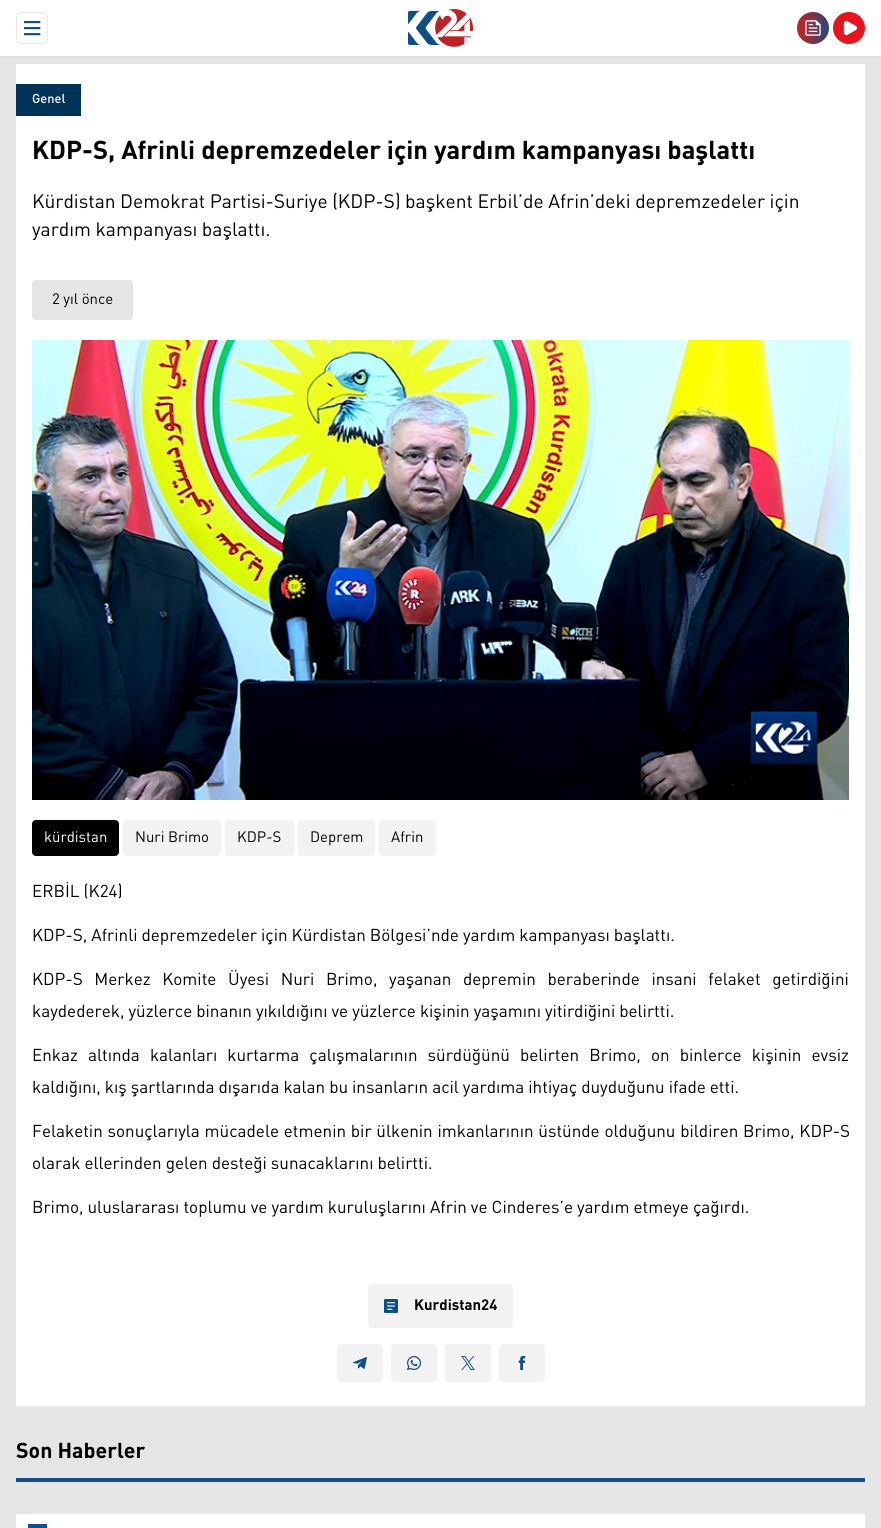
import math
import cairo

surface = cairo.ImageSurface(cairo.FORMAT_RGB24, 881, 1528)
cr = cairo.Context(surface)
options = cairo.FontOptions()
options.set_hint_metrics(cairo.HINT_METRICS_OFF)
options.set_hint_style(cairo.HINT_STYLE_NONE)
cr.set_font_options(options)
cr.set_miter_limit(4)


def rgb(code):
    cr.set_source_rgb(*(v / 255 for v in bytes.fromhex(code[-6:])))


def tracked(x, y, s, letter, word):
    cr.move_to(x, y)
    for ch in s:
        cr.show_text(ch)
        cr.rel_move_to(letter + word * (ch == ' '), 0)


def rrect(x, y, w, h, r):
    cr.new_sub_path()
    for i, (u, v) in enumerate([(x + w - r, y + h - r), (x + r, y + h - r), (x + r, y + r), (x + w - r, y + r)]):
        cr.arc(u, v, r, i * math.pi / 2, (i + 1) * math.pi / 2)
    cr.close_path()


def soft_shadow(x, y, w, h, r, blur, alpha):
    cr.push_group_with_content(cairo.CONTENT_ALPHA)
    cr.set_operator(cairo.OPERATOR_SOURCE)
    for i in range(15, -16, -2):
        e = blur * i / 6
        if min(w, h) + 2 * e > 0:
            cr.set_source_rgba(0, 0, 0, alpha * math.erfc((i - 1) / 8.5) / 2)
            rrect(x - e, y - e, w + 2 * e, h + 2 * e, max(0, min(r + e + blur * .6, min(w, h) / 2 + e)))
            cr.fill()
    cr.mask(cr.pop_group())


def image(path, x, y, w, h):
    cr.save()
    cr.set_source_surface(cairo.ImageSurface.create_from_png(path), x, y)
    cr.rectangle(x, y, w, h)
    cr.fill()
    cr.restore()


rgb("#e5e5e5")
cr.paint()
rgb("#000000")
soft_shadow(0, 1, 881, 56, 0, 1, 0.05)
rgb("#ffffff")
cr.rectangle(0, 0, 881, 56)
cr.fill()
image("img/1.png", 16, 12, 32, 32)
image("img/2.png", 408, 9, 65, 38)
image("img/3.png", 797, 12, 32, 32)
image("img/4.png", 833, 12, 32, 32)
cr.rectangle(16, 64, 849, 1342)
cr.fill()
rgb("#013258")
cr.rectangle(16, 84, 65, 32)
cr.fill()
rgb("#e5e5e5")
rrect(32, 280, 101, 40, 4)
cr.fill()
image("img/5.png", 32, 340, 817, 460)
rgb("#000000")
rrect(32, 820, 87, 36, 4)
cr.fill()
rgb("#f2f2f2")
rrect(123, 820, 98, 36, 4)
cr.fill()
rrect(225, 820, 69, 36, 4)
cr.fill()
rrect(298, 820, 77, 36, 4)
cr.fill()
rrect(379, 820, 57, 36, 4)
cr.fill()
rrect(368, 1284, 145, 44, 4)
cr.fill()
image("img/6.png", 384, 1299, 14, 14)
rrect(337, 1344, 46, 38, 4)
cr.fill()
image("img/7.png", 353, 1357, 14, 12)
rrect(391, 1344, 46, 38, 4)
cr.fill()
image("img/8.png", 407, 1356, 14, 14)
rrect(445, 1344, 46, 38, 4)
cr.fill()
image("img/9.png", 461, 1356, 14, 14)
rrect(499, 1344, 46, 38, 4)
cr.fill()
image("img/10.png", 518, 1356, 8, 14)
for x, y, w, h, color in [
    (16, 1478, 849, 4, "#124e90"),
    (16, 1514, 849, 14, "#ffffff"),
    (28, 1524, 19, 4, "#124e90"),
]:
    rgb(color)
    cr.rectangle(x, y, w, h)
    cr.fill()
cr.select_font_face("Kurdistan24 Medium")
cr.set_font_size(12)
rgb("#ffffff")
cr.move_to(32, 103)
cr.show_text("Genel")
cr.select_font_face("Kurdistan24", cairo.FONT_SLANT_NORMAL, cairo.FONT_WEIGHT_BOLD)
cr.set_font_size(24)
rgb("#000000")
cr.move_to(32, 159)
cr.show_text("KDP-S, Afrinli depremzedeler için yardım kampanyası başlattı")
cr.select_font_face("Kurdistan24")
cr.set_font_size(18)
cr.move_to(32, 208)
cr.show_text("Kürdistan Demokrat Partisi-Suriye (KDP-S) başkent Erbil’de Afrin’deki depremzedeler için")
cr.move_to(32, 236)
cr.show_text("yardım kampanyası başlattı.")
cr.set_font_size(14)
cr.move_to(52, 304)
cr.show_text("2 yıl önce")
rgb("#ffffff")
cr.move_to(44, 842)
cr.show_text("kürdistan")
rgb("#000000")
for x, y, s in [
    (135, 842, "Nuri Brimo"),
    (237, 842, "KDP-S"),
    (310, 842, "Deprem"),
    (391, 842, "Afrin"),
]:
    cr.move_to(x, y)
    cr.show_text(s)
cr.set_font_size(16)
cr.move_to(32, 897)
cr.show_text("ERBİL (K24)")
cr.move_to(32, 941)
cr.show_text("KDP-S, Afrinli depremzedeler için Kürdistan Bölgesi’nde yardım kampanyası başlattı.")
tracked(32, 985, "KDP-S Merkez Komite Üyesi Nuri Brimo, yaşanan depremin beraberinde insani felaket getirdiğini", 0, 7.6)
cr.move_to(32, 1017)
cr.show_text("kaydederek, yüzlerce binanın yıkıldığını ve yüzlerce kişinin yaşamını yitirdiğini belirtti.")
tracked(32, 1061, "Enkaz altında kalanları kurtarma çalışmalarının sürdüğünü belirten Brimo, on binlerce kişinin evsiz", 0, 6.1)
cr.move_to(32, 1093)
cr.show_text("kaldığını, kış şartlarında dışarıda kalan bu insanların acil yardıma ihtiyaç duyduğunu ifade etti.")
tracked(32, 1137, "Felaketin sonuçlarıyla mücadele etmenin bir ülkenin imkanlarının üstünde olduğunu bildiren Brimo, KDP-S", 0, 0.75)
cr.move_to(32, 1169)
cr.show_text("olarak ellerinden gelen desteği sunacaklarını belirtti.")
cr.move_to(32, 1213)
cr.show_text("Brimo, uluslararası toplumu ve yardım kuruluşlarını Afrin ve Cinderes’e yardım etmeye çağırdı.")
cr.select_font_face("Kurdistan24", cairo.FONT_SLANT_NORMAL, cairo.FONT_WEIGHT_BOLD)
cr.set_font_size(14)
cr.move_to(414, 1310)
cr.show_text("Kurdistan24")
cr.set_font_size(20)
cr.move_to(16, 1458)
cr.show_text("Son Haberler")
surface.write_to_png("page.png")
